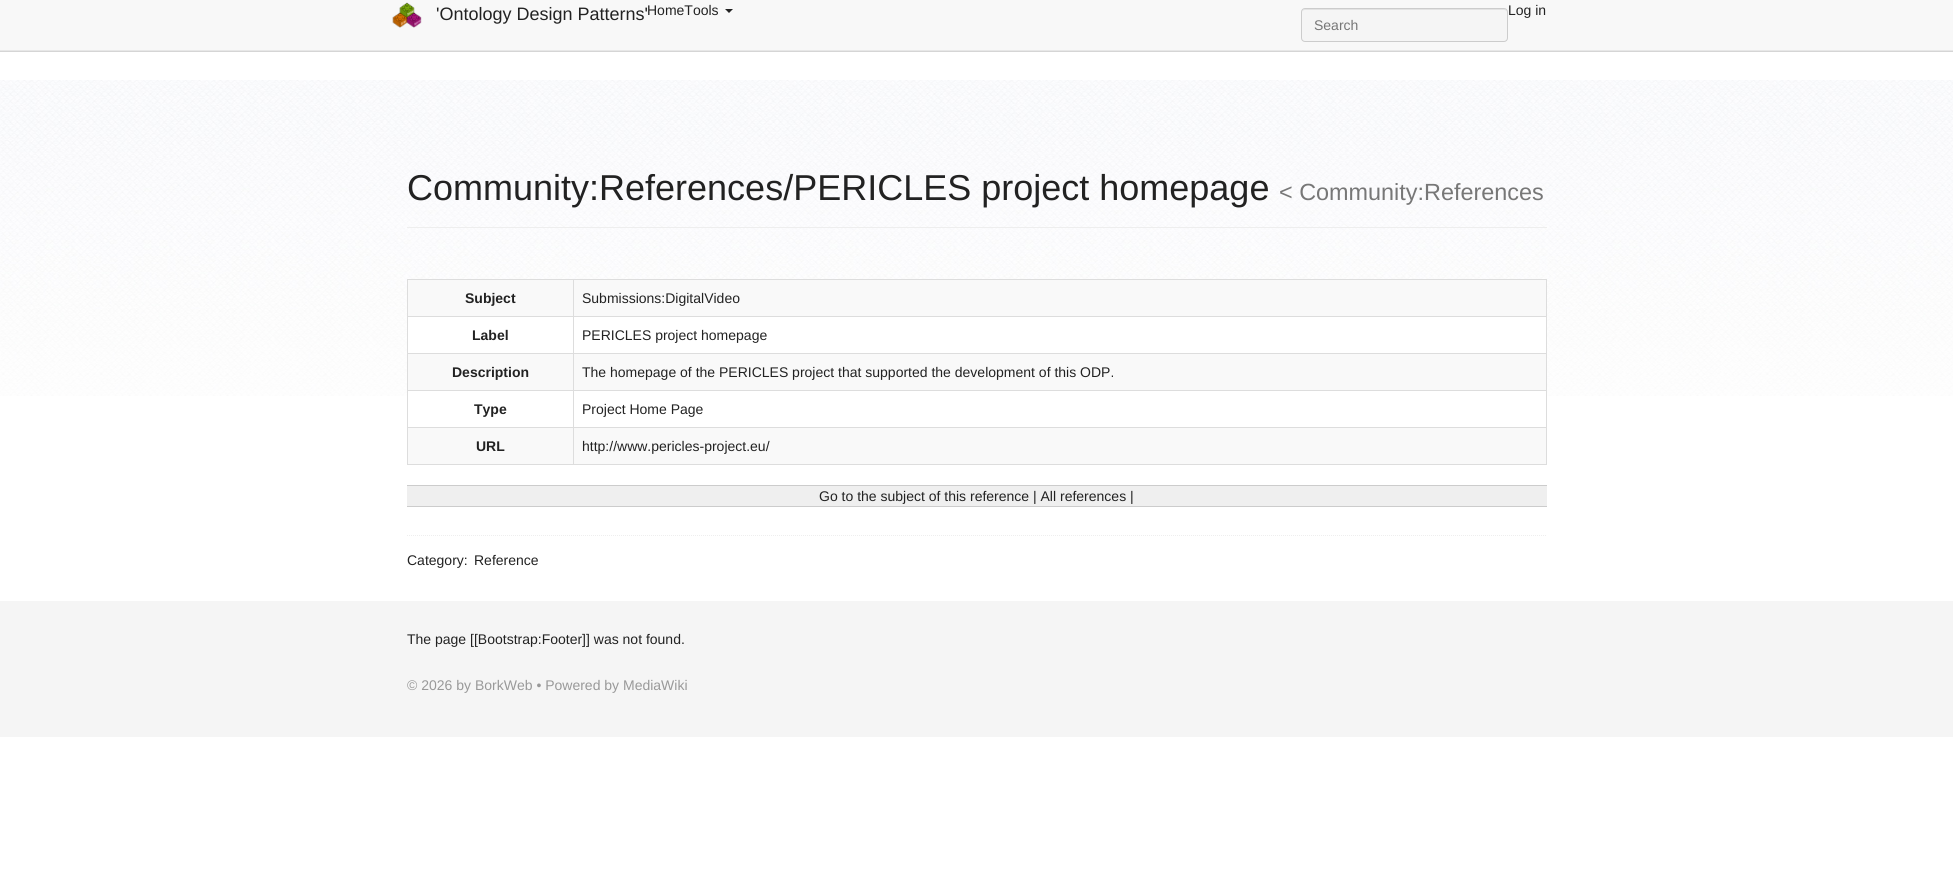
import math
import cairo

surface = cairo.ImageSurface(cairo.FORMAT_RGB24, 1953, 896)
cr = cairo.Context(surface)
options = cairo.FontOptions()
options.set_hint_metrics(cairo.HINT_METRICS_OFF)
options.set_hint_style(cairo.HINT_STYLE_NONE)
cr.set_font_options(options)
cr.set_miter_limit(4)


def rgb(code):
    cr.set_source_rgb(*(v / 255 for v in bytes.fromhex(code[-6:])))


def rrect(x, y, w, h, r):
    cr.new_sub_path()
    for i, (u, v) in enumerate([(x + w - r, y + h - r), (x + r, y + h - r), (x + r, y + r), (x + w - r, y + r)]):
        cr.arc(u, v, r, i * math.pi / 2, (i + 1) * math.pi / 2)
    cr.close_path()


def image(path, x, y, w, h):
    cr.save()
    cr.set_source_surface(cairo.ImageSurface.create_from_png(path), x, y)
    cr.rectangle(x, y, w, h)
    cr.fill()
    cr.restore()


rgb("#ffffff")
cr.paint()
image("img/1.png", 0, 80, 1953, 316)
rgb("#f8f8f8")
cr.rectangle(0, 0, 1953, 50)
cr.fill()
rgb("#e7e7e7")
cr.rectangle(0, 50, 1953, 1)
cr.fill()
image("img/2.png", 392, 2, 30, 26)
rgb("#222222")
cr.new_path()
cr.move_to(725, 9)
cr.line_to(733, 9)
cr.line_to(729, 13)
cr.close_path()
cr.fill()
rgb("#f5f5f5")
rrect(1301, 8, 207, 34, 4)
cr.fill()
rgb("#e3e3e3")
cr.new_path()
cr.move_to(1305, 10)
cr.line_to(1504, 10)
cr.curve_to(1506, 10, 1507, 11, 1507, 13)
cr.curve_to(1507, 11, 1506, 9, 1504, 9)
cr.line_to(1305, 9)
cr.curve_to(1303, 9, 1302, 11, 1302, 13)
cr.curve_to(1302, 11, 1303, 10, 1305, 10)
cr.close_path()
cr.fill()
rrect(1301.5, 8.5, 206, 33, 3.5)
rgb("#cccccc")
cr.set_line_width(1)
cr.stroke()
for x, y, w, h, color in [
    (0, 51, 1953, 1, "#d5d5d5"),
    (407, 227, 1140, 1, "#eeeeee"),
    (408, 317, 1138, 79, "#ffffff"),
    (408, 280, 165, 36, "#f9f9f9"),
    (573, 279, 974, 1, "#dddddd"),
    (573, 316, 974, 1, "#dddddd"),
    (573, 353, 974, 1, "#dddddd"),
    (573, 390, 974, 1, "#dddddd"),
    (573, 427, 974, 1, "#dddddd"),
    (1546, 427, 1, 38, "#dddddd"),
    (573, 464, 974, 1, "#dddddd"),
    (573, 427, 1, 38, "#dddddd"),
    (407, 427, 167, 1, "#dddddd"),
    (573, 390, 1, 38, "#dddddd"),
    (407, 390, 167, 1, "#dddddd"),
    (573, 353, 1, 38, "#dddddd"),
    (407, 353, 167, 1, "#dddddd"),
    (573, 316, 1, 38, "#dddddd"),
    (407, 316, 167, 1, "#dddddd"),
    (573, 279, 1, 38, "#dddddd"),
    (407, 279, 167, 1, "#dddddd"),
    (407, 464, 167, 1, "#dddddd"),
    (407, 427, 1, 38, "#dddddd"),
    (407, 390, 1, 38, "#dddddd"),
    (407, 353, 1, 38, "#dddddd"),
    (407, 316, 1, 38, "#dddddd"),
    (407, 279, 1, 38, "#dddddd"),
    (574, 280, 972, 36, "#f9f9f9"),
    (1546, 390, 1, 38, "#dddddd"),
    (1546, 353, 1, 38, "#dddddd"),
    (1546, 316, 1, 38, "#dddddd"),
    (1546, 279, 1, 38, "#dddddd"),
    (408, 354, 165, 36, "#f9f9f9"),
    (574, 354, 972, 36, "#f9f9f9"),
    (408, 428, 165, 36, "#f9f9f9"),
    (574, 428, 972, 36, "#f9f9f9"),
    (407, 486, 1140, 20, "#efefef"),
    (407, 485, 1140, 1, "#cccccc"),
    (407, 506, 1140, 1, "#cccccc"),
]:
    rgb(color)
    cr.rectangle(x, y, w, h)
    cr.fill()
cr.new_path()
cr.move_to(407, 535.5)
cr.line_to(1547, 535.5)
rgb("#eeeeee")
cr.set_dash([1, 1])
cr.stroke()
rgb("#f5f5f5")
cr.rectangle(0, 601, 1953, 136)
cr.fill()
cr.select_font_face("Liberation Sans")
cr.set_font_size(18)
rgb("#222222")
cr.move_to(436, 20)
cr.show_text("'Ontology Design Patterns'")
cr.set_font_size(14)
cr.move_to(647, 15)
cr.show_text("HomeTools")
cr.move_to(1508, 15)
cr.show_text("Log in")
rgb("#777777")
cr.move_to(1314, 30)
cr.show_text("Search")
cr.set_font_size(36)
rgb("#222222")
cr.move_to(407, 200)
cr.show_text("Community:References/PERICLES project homepage")
cr.set_font_size(23.4)
rgb("#777777")
cr.move_to(1279, 200)
cr.show_text("< Community:References")
cr.select_font_face("Liberation Sans", cairo.FONT_SLANT_NORMAL, cairo.FONT_WEIGHT_BOLD)
cr.set_font_size(14)
rgb("#222222")
cr.move_to(465, 303)
cr.show_text("Subject")
cr.select_font_face("Liberation Sans")
cr.move_to(582, 303)
cr.show_text("Submissions:DigitalVideo")
cr.select_font_face("Liberation Sans", cairo.FONT_SLANT_NORMAL, cairo.FONT_WEIGHT_BOLD)
cr.move_to(472, 340)
cr.show_text("Label")
cr.select_font_face("Liberation Sans")
cr.move_to(582, 340)
cr.show_text("PERICLES project homepage")
cr.select_font_face("Liberation Sans", cairo.FONT_SLANT_NORMAL, cairo.FONT_WEIGHT_BOLD)
cr.move_to(452, 377)
cr.show_text("Description")
cr.select_font_face("Liberation Sans")
cr.move_to(582, 377)
cr.show_text("The homepage of the PERICLES project that supported the development of this ODP.")
cr.select_font_face("Liberation Sans", cairo.FONT_SLANT_NORMAL, cairo.FONT_WEIGHT_BOLD)
cr.move_to(474, 414)
cr.show_text("Type")
cr.select_font_face("Liberation Sans")
cr.move_to(582, 414)
cr.show_text("Project Home Page")
cr.select_font_face("Liberation Sans", cairo.FONT_SLANT_NORMAL, cairo.FONT_WEIGHT_BOLD)
cr.move_to(476, 451)
cr.show_text("URL")
cr.select_font_face("Liberation Sans")
for x, y, s in [
    (582, 451, "http://www.pericles-project.eu/"),
    (819, 501, "Go to the subject of this reference | All references |"),
    (407, 565, "Category:"),
    (474, 565, "Reference"),
    (407, 644, "The page [[Bootstrap:Footer]] was not found."),
]:
    cr.move_to(x, y)
    cr.show_text(s)
rgb("#999999")
cr.move_to(407, 690)
cr.show_text("© 2026 by BorkWeb • Powered by MediaWiki")
surface.write_to_png("page.png")
